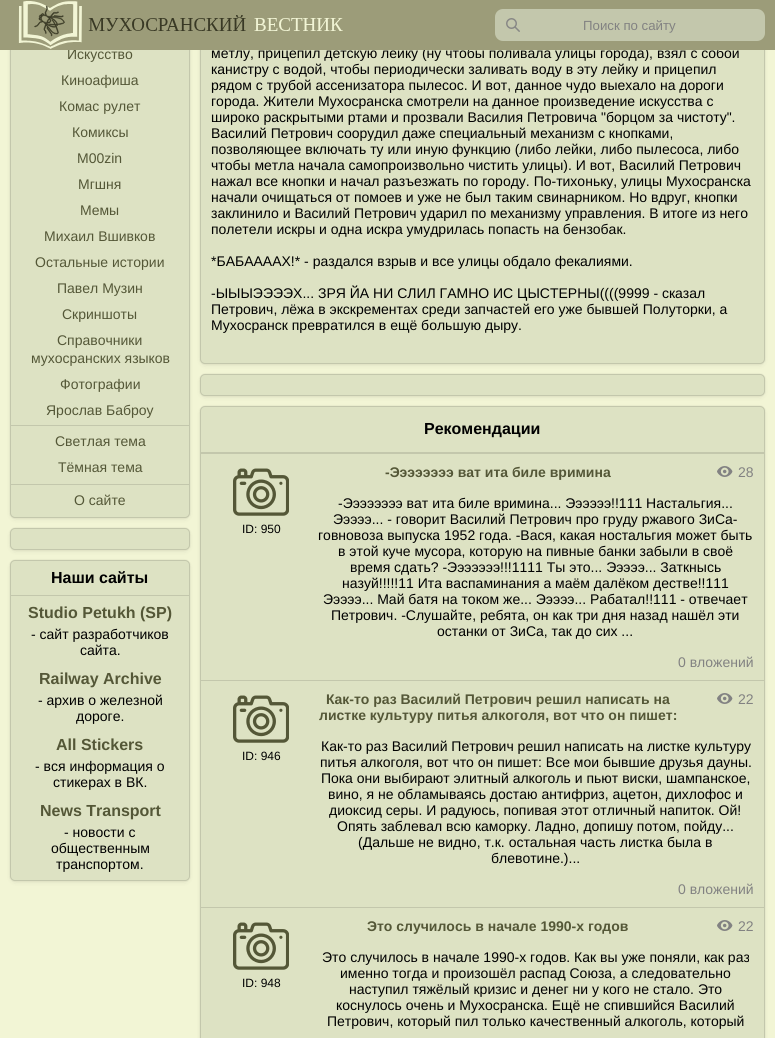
import math
import cairo

surface = cairo.ImageSurface(cairo.FORMAT_RGB24, 775, 1038)
cr = cairo.Context(surface)
options = cairo.FontOptions()
options.set_hint_metrics(cairo.HINT_METRICS_OFF)
options.set_hint_style(cairo.HINT_STYLE_NONE)
cr.set_font_options(options)
cr.set_miter_limit(4)


def rgb(code):
    cr.set_source_rgb(*(v / 255 for v in bytes.fromhex(code[-6:])))


def rrect(x, y, w, h, r):
    cr.new_sub_path()
    for i, (u, v) in enumerate([(x + w - r, y + h - r), (x + r, y + h - r), (x + r, y + r), (x + w - r, y + r)]):
        cr.arc(u, v, r, i * math.pi / 2, (i + 1) * math.pi / 2)
    cr.close_path()


def soft_shadow(x, y, w, h, r, blur, alpha):
    cr.push_group_with_content(cairo.CONTENT_ALPHA)
    cr.set_operator(cairo.OPERATOR_SOURCE)
    for i in range(15, -16, -2):
        e = blur * i / 6
        if min(w, h) + 2 * e > 0:
            cr.set_source_rgba(0, 0, 0, alpha * math.erfc((i - 1) / 8.5) / 2)
            rrect(x - e, y - e, w + 2 * e, h + 2 * e, max(0, min(r + e + blur * .6, min(w, h) / 2 + e)))
            cr.fill()
    cr.mask(cr.pop_group())


def image(path, x, y, w, h):
    cr.save()
    cr.set_source_surface(cairo.ImageSurface.create_from_png(path), x, y)
    cr.rectangle(x, y, w, h)
    cr.fill()
    cr.restore()


rgb("#f2f5d5")
cr.paint()
rgb("#000000")
soft_shadow(10, -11, 180, 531, 5, 2, 0.06)
soft_shadow(10, -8, 180, 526, 5, 1, 0.08)
rgb("#dde2c3")
rrect(11, -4, 178, 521, 4)
cr.fill()
rrect(10.5, -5.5, 179, 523, 4.5)
rgb("#c3c7ac")
cr.set_line_width(1)
cr.stroke()
cr.rectangle(11, 425, 178, 1)
cr.fill()
cr.rectangle(11, 484, 178, 1)
cr.fill()
rgb("#000000")
soft_shadow(10, 530, 180, 22, 5, 2, 0.06)
soft_shadow(10, 528, 180, 22, 5, 1, 0.08)
rgb("#dde2c3")
rrect(10.5, 528.5, 179, 21, 4.5)
cr.fill_preserve()
rgb("#c3c7ac")
cr.stroke()
rgb("#000000")
soft_shadow(10, 562, 180, 321, 5, 2, 0.06)
soft_shadow(10, 560, 180, 321, 5, 1, 0.08)
rgb("#dde2c3")
rrect(10.5, 560.5, 179, 320, 4.5)
cr.fill_preserve()
rgb("#c3c7ac")
cr.stroke()
cr.rectangle(11, 595, 178, 1)
cr.fill()
rgb("#000000")
soft_shadow(200, -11, 565, 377, 5, 2, 0.06)
soft_shadow(200, -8, 565, 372, 5, 1, 0.08)
rgb("#dde2c3")
rrect(201, -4, 563, 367, 4)
cr.fill()
rrect(200.5, -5.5, 564, 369, 4.5)
rgb("#c3c7ac")
cr.stroke()
rgb("#000000")
soft_shadow(200, 376, 565, 22, 5, 2, 0.06)
soft_shadow(200, 374, 565, 22, 5, 1, 0.08)
rgb("#dde2c3")
rrect(200.5, 374.5, 564, 21, 4.5)
cr.fill_preserve()
rgb("#c3c7ac")
cr.stroke()
rgb("#000000")
soft_shadow(200, 408, 565, 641, 5, 2, 0.06)
soft_shadow(200, 406, 565, 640, 5, 1, 0.08)
rgb("#dde2c3")
rrect(201, 407, 563, 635, 4)
cr.fill()
rrect(200.5, 406.5, 564, 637, 4.5)
rgb("#c3c7ac")
cr.stroke()
cr.rectangle(201, 452, 563, 2)
cr.fill()
image("img/3.png", 233, 468, 56, 48)
image("img/4.png", 717, 466, 16, 11)
cr.rectangle(201, 680, 563, 1)
cr.fill()
image("img/3.png", 233, 695, 56, 48)
image("img/4.png", 717, 693, 16, 11)
cr.rectangle(201, 907, 563, 1)
cr.fill()
image("img/3.png", 233, 922, 56, 48)
image("img/4.png", 717, 920, 16, 11)
cr.select_font_face("Liberation Sans")
cr.set_font_size(14)
rgb("#545737")
for x, y, s in [
    (67, 59, "Искусство"),
    (61, 85, "Киноафиша"),
    (59, 111, "Комас рулет"),
    (72, 137, "Комиксы"),
    (77, 163, "M00zin"),
    (78, 189, "Мгшня"),
    (80, 215, "Мемы"),
    (44, 241, "Михаил Вшивков"),
    (35, 267, "Остальные истории"),
    (57, 293, "Павел Музин"),
    (62, 319, "Скриншоты"),
    (57, 345, "Справочники"),
    (31, 363, "мухосранских языков"),
    (60, 389, "Фотографии"),
    (46, 415, "Ярослав Баброу"),
    (55, 446, "Светлая тема"),
    (58, 472, "Тёмная тема"),
    (74, 505, "О сайте"),
]:
    cr.move_to(x, y)
    cr.show_text(s)
cr.select_font_face("Liberation Sans", cairo.FONT_SLANT_NORMAL, cairo.FONT_WEIGHT_BOLD)
cr.set_font_size(16)
rgb("#000000")
cr.move_to(51, 583)
cr.show_text("Наши сайты")
rgb("#545737")
cr.move_to(28, 618)
cr.show_text("Studio Petukh (SP)")
cr.select_font_face("Liberation Sans")
cr.set_font_size(14)
rgb("#000000")
cr.move_to(31, 639)
cr.show_text("- сайт разработчиков")
cr.move_to(80, 655)
cr.show_text("сайта.")
cr.select_font_face("Liberation Sans", cairo.FONT_SLANT_NORMAL, cairo.FONT_WEIGHT_BOLD)
cr.set_font_size(16)
rgb("#545737")
cr.move_to(39, 684)
cr.show_text("Railway Archive")
cr.select_font_face("Liberation Sans")
cr.set_font_size(14)
rgb("#000000")
cr.move_to(38, 705)
cr.show_text("- архив о железной")
cr.move_to(76, 721)
cr.show_text("дороге.")
cr.select_font_face("Liberation Sans", cairo.FONT_SLANT_NORMAL, cairo.FONT_WEIGHT_BOLD)
cr.set_font_size(16)
rgb("#545737")
cr.move_to(56, 750)
cr.show_text("All Stickers")
cr.select_font_face("Liberation Sans")
cr.set_font_size(14)
rgb("#000000")
cr.move_to(35, 771)
cr.show_text("- вся информация о")
cr.move_to(53, 787)
cr.show_text("стикерах в ВК.")
cr.select_font_face("Liberation Sans", cairo.FONT_SLANT_NORMAL, cairo.FONT_WEIGHT_BOLD)
cr.set_font_size(16)
rgb("#545737")
cr.move_to(40, 816)
cr.show_text("News Transport")
cr.select_font_face("Liberation Sans")
cr.set_font_size(14)
rgb("#000000")
for x, y, s in [
    (64, 837, "- новости с"),
    (51, 853, "общественным"),
    (56, 869, "транспортом."),
    (211, 58, "метлу, прицепил детскую лейку (ну чтобы поливала улицы города), взял с собой"),
]:
    cr.move_to(x, y)
    cr.show_text(s)
rgb("#9c9c79")
cr.rectangle(0, 0, 775, 50)
cr.fill()
rgb("#c3c7ac")
rrect(495, 9, 270, 32, 8)
cr.fill()
cr.set_font_size(13.25)
rgb("#828282")
cr.move_to(583, 30)
cr.show_text("Поиск по сайту")
image("img/2.png", 506, 18, 14, 14)
image("img/1.png", 18, 1, 325, 48)
cr.set_font_size(14)
rgb("#000000")
for x, y, s in [
    (211, 74, "канистру с водой, чтобы периодически заливать воду в эту лейку и прицепил"),
    (211, 90, "рядом с трубой ассенизатора пылесос. И вот, данное чудо выехало на дороги"),
    (211, 106, "города. Жители Мухосранска смотрели на данное произведение искусства с"),
    (211, 122, "широко раскрытыми ртами и прозвали Василия Петровича \"борцом за чистоту\"."),
    (211, 138, "Василий Петрович соорудил даже специальный механизм с кнопками,"),
    (211, 154, "позволяющее включать ту или иную функцию (либо лейки, либо пылесоса, либо"),
    (211, 170, "чтобы метла начала самопроизвольно чистить улицы). И вот, Василий Петрович"),
    (211, 186, "нажал все кнопки и начал разъезжать по городу. По-тихоньку, улицы Мухосранска"),
    (211, 202, "начали очищаться от помоев и уже не был таким свинарником. Но вдруг, кнопки"),
    (211, 218, "заклинило и Василий Петрович ударил по механизму управления. В итоге из него"),
    (211, 234, "полетели искры и одна искра умудрилась попасть на бензобак."),
    (211, 266, "*БАБААААХ!* - раздался взрыв и все улицы обдало фекалиями."),
    (211, 298, "-ЫЫЫЭЭЭЭХ... ЗРЯ ЙА НИ СЛИЛ ГАМНО ИС ЦЫСТЕРНЫ((((9999 - сказал"),
    (211, 314, "Петрович, лёжа в экскрементах среди запчастей его уже бывшей Полуторки, а"),
    (211, 330, "Мухосранск превратился в ещё большую дыру."),
]:
    cr.move_to(x, y)
    cr.show_text(s)
cr.select_font_face("Liberation Sans", cairo.FONT_SLANT_NORMAL, cairo.FONT_WEIGHT_BOLD)
cr.set_font_size(16)
cr.move_to(424, 434)
cr.show_text("Рекомендации")
cr.select_font_face("Liberation Sans")
cr.set_font_size(12)
cr.move_to(242, 533)
cr.show_text("ID: 950")
cr.select_font_face("Liberation Sans", cairo.FONT_SLANT_NORMAL, cairo.FONT_WEIGHT_BOLD)
cr.set_font_size(14)
rgb("#545737")
cr.move_to(385, 477)
cr.show_text("-Ээээээээ ват ита биле вримина")
cr.select_font_face("Liberation Sans")
rgb("#828282")
cr.move_to(738, 477)
cr.show_text("28")
rgb("#000000")
for x, y, s in [
    (338, 508, "-Ээээээээ ват ита биле вримина... Ээээээ!!111 Настальгия..."),
    (333, 524, "Эээээ... - говорит Василий Петрович про груду ржавого ЗиСа-"),
    (318, 540, "говновоза выпуска 1952 года. -Вася, какая ностальгия может быть"),
    (338, 556, "в этой куче мусора, которую на пивные банки забыли в своё"),
    (350, 572, "время сдать? -Эээээээ!!!1111 Ты это... Эээээ... Заткнысь"),
    (342, 588, "назуй!!!!!11 Ита васпаминания а маём далёком дестве!!111"),
    (323, 604, "Эээээ... Май батя на током же... Эээээ... Рабатал!!111 - отвечает"),
    (331, 620, "Петрович. -Слушайте, ребята, он как три дня назад нашёл эти"),
    (437, 636, "останки от ЗиСа, так до сих ..."),
]:
    cr.move_to(x, y)
    cr.show_text(s)
rgb("#828282")
cr.move_to(678, 667)
cr.show_text("0 вложений")
cr.set_font_size(12)
rgb("#000000")
cr.move_to(242, 760)
cr.show_text("ID: 946")
cr.select_font_face("Liberation Sans", cairo.FONT_SLANT_NORMAL, cairo.FONT_WEIGHT_BOLD)
cr.set_font_size(14)
rgb("#545737")
cr.move_to(326, 704)
cr.show_text("Как-то раз Василий Петрович решил написать на")
cr.move_to(319, 720)
cr.show_text("листке культуру питья алкоголя, вот что он пишет:")
cr.select_font_face("Liberation Sans")
rgb("#828282")
cr.move_to(738, 704)
cr.show_text("22")
rgb("#000000")
for x, y, s in [
    (321, 751, "Как-то раз Василий Петрович решил написать на листке культуру"),
    (320, 767, "питья алкоголя, вот что он пишет: Все мои бывшие друзья дауны."),
    (321, 783, "Пока они выбирают элитный алкоголь и пьют виски, шампанское,"),
    (328, 799, "вино, я не обламываясь достаю антифриз, ацетон, дихлофос и"),
    (329, 815, "диоксид серы. И радуюсь, попивая этот отличный напиток. Ой!"),
    (337, 831, "Опять заблевал всю каморку. Ладно, допишу потом, пойду..."),
    (358, 847, "(Дальше не видно, т.к. остальная часть листка была в"),
    (491, 863, "блевотине.)..."),
]:
    cr.move_to(x, y)
    cr.show_text(s)
rgb("#828282")
cr.move_to(678, 894)
cr.show_text("0 вложений")
cr.set_font_size(12)
rgb("#000000")
cr.move_to(242, 987)
cr.show_text("ID: 948")
cr.select_font_face("Liberation Sans", cairo.FONT_SLANT_NORMAL, cairo.FONT_WEIGHT_BOLD)
cr.set_font_size(14)
rgb("#545737")
cr.move_to(367, 931)
cr.show_text("Это случилось в начале 1990-х годов")
cr.select_font_face("Liberation Sans")
rgb("#828282")
cr.move_to(738, 931)
cr.show_text("22")
rgb("#000000")
for x, y, s in [
    (322, 962, "Это случилось в начале 1990-х годов. Как вы уже поняли, как раз"),
    (340, 978, "именно тогда и произошёл распад Союза, а следовательно"),
    (349, 994, "наступил тяжёлый кризис и денег ни у кого не стало. Это"),
    (336, 1010, "коснулось очень и Мухосранска. Ещё не спившийся Василий"),
    (327, 1026, "Петрович, который пил только качественный алкоголь, который"),
]:
    cr.move_to(x, y)
    cr.show_text(s)
surface.write_to_png("page.png")
